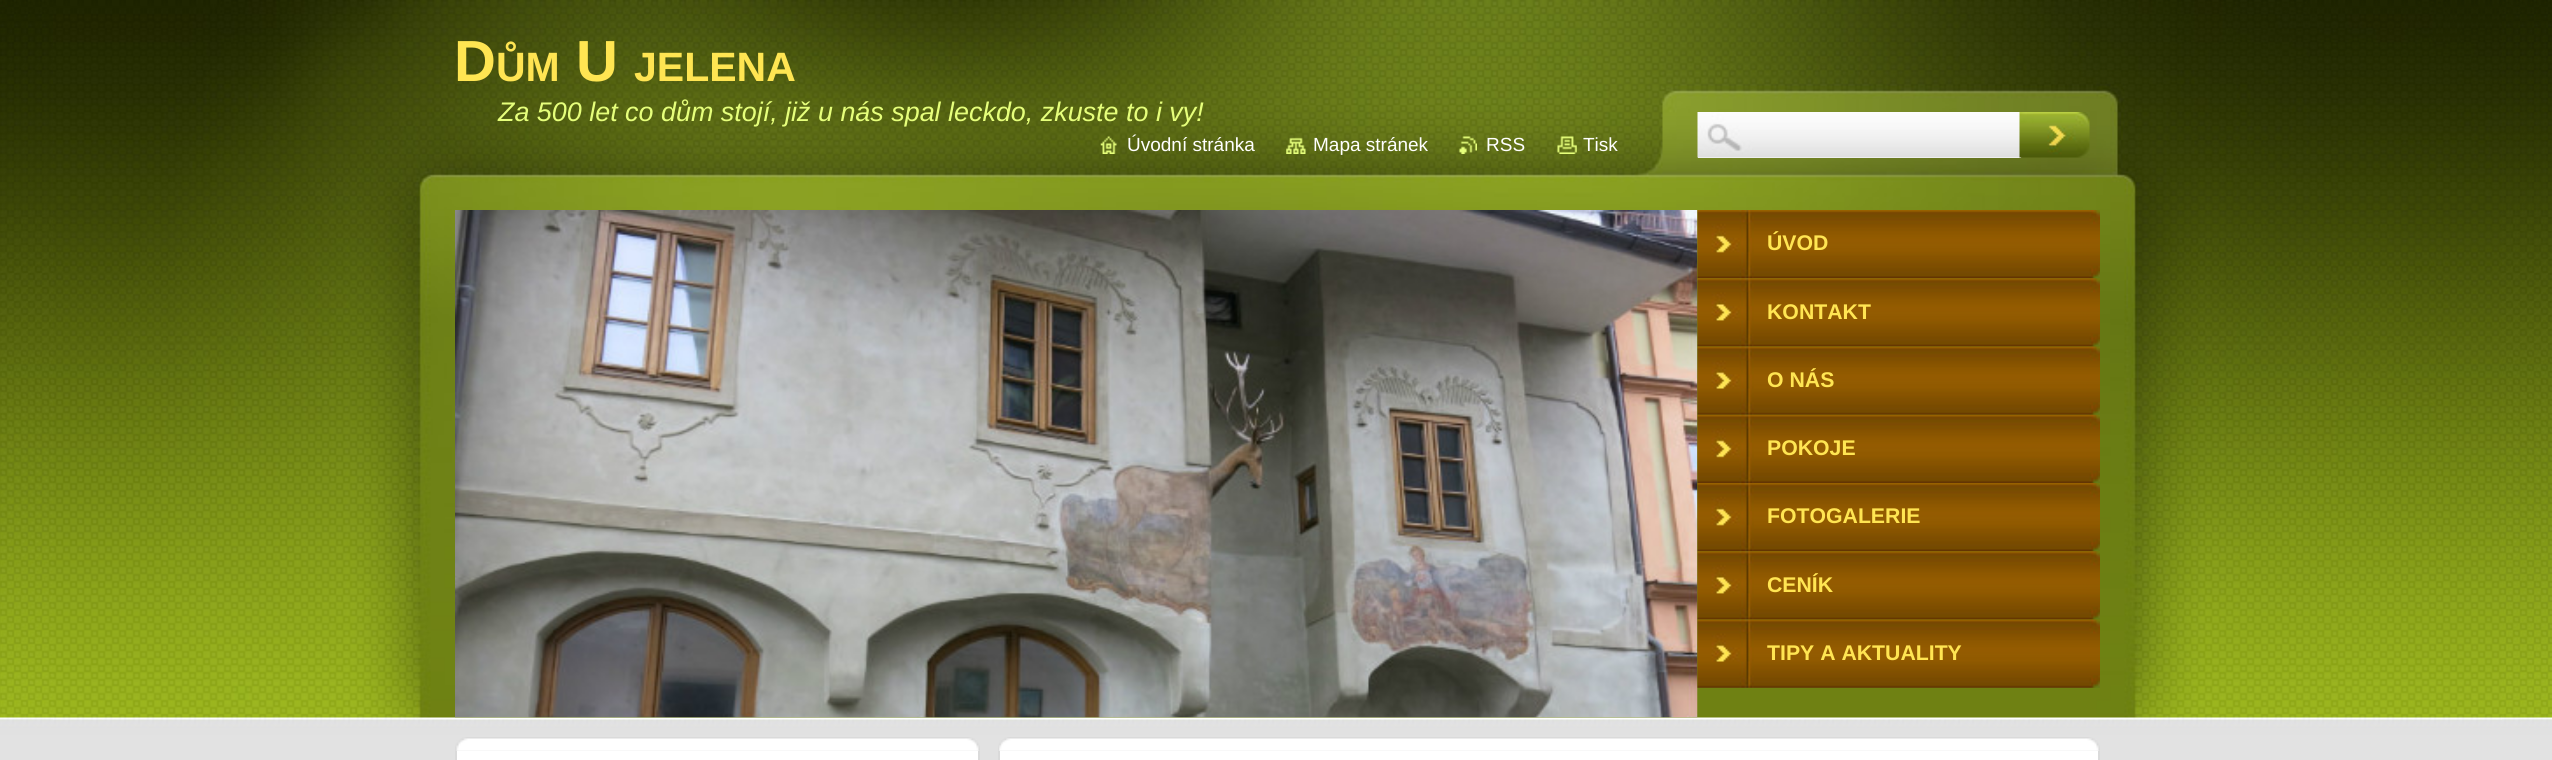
import math
import cairo

surface = cairo.ImageSurface(cairo.FORMAT_RGB24, 2552, 760)
cr = cairo.Context(surface)
options = cairo.FontOptions()
options.set_hint_metrics(cairo.HINT_METRICS_OFF)
options.set_hint_style(cairo.HINT_STYLE_NONE)
cr.set_font_options(options)
cr.set_miter_limit(4)


def rgb(code):
    cr.set_source_rgb(*(v / 255 for v in bytes.fromhex(code[-6:])))


def image(path, x, y, w, h):
    cr.save()
    cr.set_source_surface(cairo.ImageSurface.create_from_png(path), x, y)
    cr.rectangle(x, y, w, h)
    cr.fill()
    cr.restore()


rgb("#ffffff")
cr.paint()
image("img/1.png", 0, 0, 2552, 760)
image("img/2.png", 53, 0, 2449, 720)
image("img/3.png", 455, 210, 1243, 508)
image("img/4.png", 1100, 136, 17, 18)
image("img/5.png", 1286, 137, 20, 17)
image("img/6.png", 1459, 136, 18, 18)
image("img/7.png", 1557, 136, 20, 18)
rgb("#ffffff")
cr.rectangle(1698, 157, 323, 1)
cr.fill()
image("img/8.png", 1697, 112, 325, 46)
image("img/9.png", 2019, 112, 71, 46)
image("img/10.png", 1697, 210, 403, 69)
image("img/11.png", 1697, 278, 403, 69)
image("img/12.png", 1697, 346, 403, 69)
image("img/13.png", 1697, 414, 403, 69)
image("img/14.png", 1697, 483, 403, 69)
image("img/15.png", 1697, 551, 403, 69)
image("img/16.png", 1697, 619, 403, 69)
image("img/17.png", 455, 737, 525, 14)
for x, y, w, h, color in [
    (457, 751, 521, 9, "#ffffff"),
    (978, 751, 2, 9, "#dadada"),
    (455, 751, 2, 9, "#dadada"),
]:
    rgb(color)
    cr.rectangle(x, y, w, h)
    cr.fill()
image("img/18.png", 998, 737, 1102, 14)
for x, y, w, h, color in [
    (1000, 751, 1098, 9, "#ffffff"),
    (2098, 751, 2, 9, "#dadada"),
    (998, 751, 2, 9, "#dadada"),
]:
    rgb(color)
    cr.rectangle(x, y, w, h)
    cr.fill()
cr.select_font_face("Liberation Sans", cairo.FONT_SLANT_NORMAL, cairo.FONT_WEIGHT_BOLD)
cr.set_font_size(58)
rgb("#ffe552")
cr.move_to(454, 81)
cr.show_text("D")
cr.set_font_size(41)
cr.move_to(496, 81)
cr.show_text("ŮM")
cr.set_font_size(58)
cr.move_to(576, 81)
cr.show_text("U")
cr.set_font_size(41)
cr.move_to(634, 81)
cr.show_text("JELENA")
cr.select_font_face("Liberation Sans", cairo.FONT_SLANT_ITALIC)
cr.set_font_size(26.9)
rgb("#e6ff7b")
cr.move_to(498, 121)
cr.show_text("Za 500 let co dům stojí, již u nás spal leckdo, zkuste to i vy!")
cr.select_font_face("Liberation Sans")
cr.set_font_size(19)
rgb("#ffffff")
for x, y, s in [
    (1127, 151, "Úvodní stránka"),
    (1313, 151, "Mapa stránek"),
    (1486, 151, "RSS"),
    (1583, 151, "Tisk"),
]:
    cr.move_to(x, y)
    cr.show_text(s)
cr.select_font_face("Liberation Sans", cairo.FONT_SLANT_NORMAL, cairo.FONT_WEIGHT_BOLD)
cr.set_font_size(21.25)
rgb("#ffe552")
for x, y, s in [
    (1767, 250, "ÚVOD"),
    (1767, 319, "KONTAKT"),
    (1767, 387, "O NÁS"),
    (1767, 455, "POKOJE"),
    (1767, 523, "FOTOGALERIE"),
    (1767, 592, "CENÍK"),
    (1767, 660, "TIPY A AKTUALITY"),
]:
    cr.move_to(x, y)
    cr.show_text(s)
surface.write_to_png("page.png")
